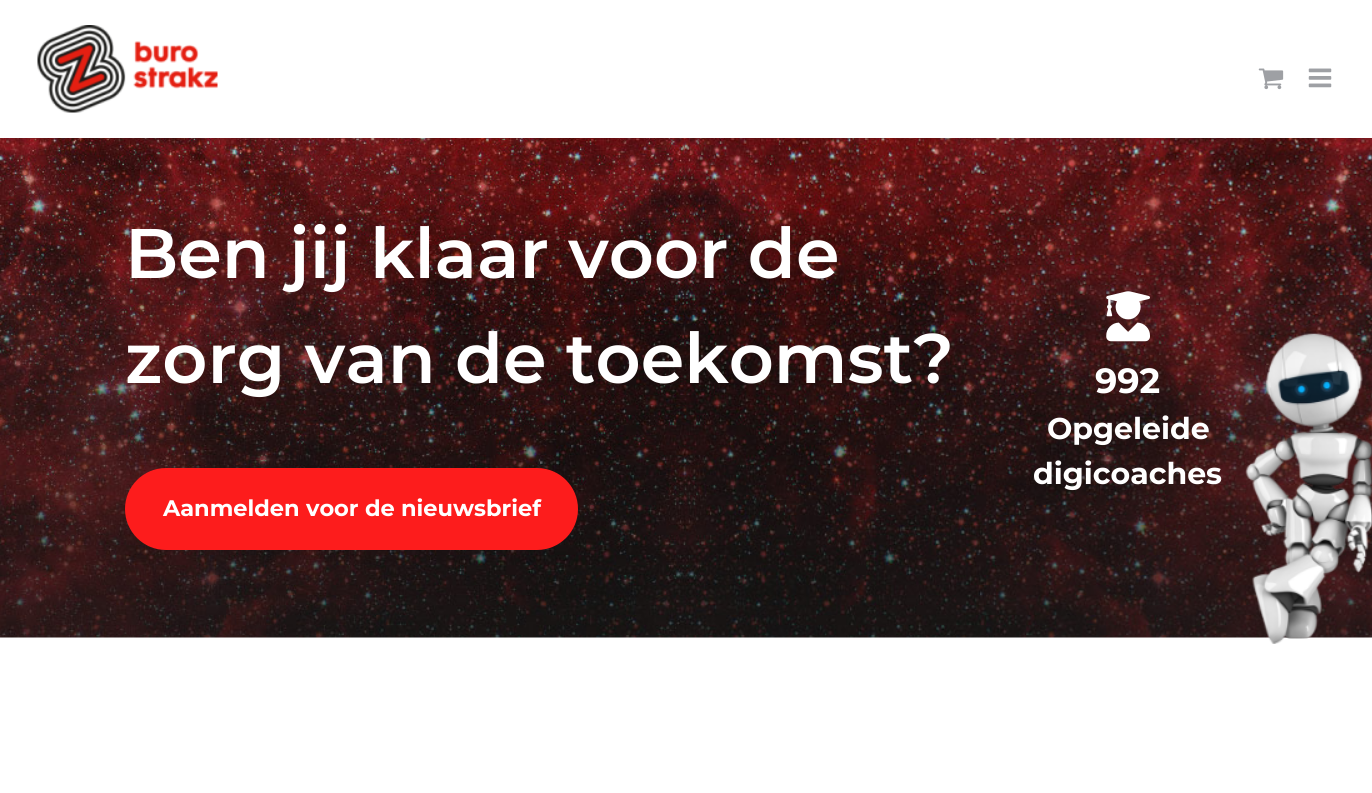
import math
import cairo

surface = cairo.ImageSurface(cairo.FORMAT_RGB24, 1372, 793)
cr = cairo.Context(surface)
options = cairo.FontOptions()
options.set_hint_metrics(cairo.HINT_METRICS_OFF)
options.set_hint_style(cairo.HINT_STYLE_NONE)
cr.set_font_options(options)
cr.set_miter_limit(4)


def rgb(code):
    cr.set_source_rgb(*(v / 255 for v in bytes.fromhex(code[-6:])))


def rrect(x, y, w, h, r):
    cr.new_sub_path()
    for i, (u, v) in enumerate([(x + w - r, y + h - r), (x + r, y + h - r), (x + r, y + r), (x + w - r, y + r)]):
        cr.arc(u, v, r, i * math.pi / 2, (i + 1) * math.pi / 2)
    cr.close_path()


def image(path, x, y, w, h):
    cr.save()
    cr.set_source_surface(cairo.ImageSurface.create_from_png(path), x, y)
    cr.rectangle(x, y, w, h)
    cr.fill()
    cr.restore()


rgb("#ffffff")
cr.paint()
image("img/1.png", 37, 25, 181, 88)
image("img/2.png", 1258, 68, 26, 22)
image("img/3.png", 1308, 68, 24, 20)
image("img/4.png", 0, 138, 1372, 500)
rgb("#fd1c1c")
rrect(125, 468, 453, 82, 41)
cr.fill()
image("img/5.png", 1106, 291, 44, 51)
image("img/6.png", 1245, 333, 127, 311)
cr.select_font_face("Montserrat SemiBold")
cr.set_font_size(70)
rgb("#ffffff")
cr.move_to(125, 278)
cr.show_text("Ben jij klaar voor de")
cr.move_to(125, 383)
cr.show_text("zorg van de toekomst?")
cr.select_font_face("Montserrat", cairo.FONT_SLANT_NORMAL, cairo.FONT_WEIGHT_BOLD)
cr.set_font_size(22.5)
cr.move_to(163, 516)
cr.show_text("Aanmelden voor de nieuwsbrief")
cr.set_font_size(35)
cr.move_to(1095, 393)
cr.show_text("992")
cr.set_font_size(30)
cr.move_to(1047, 439)
cr.show_text("Opgeleide")
cr.move_to(1033, 484)
cr.show_text("digicoaches")
surface.write_to_png("page.png")
